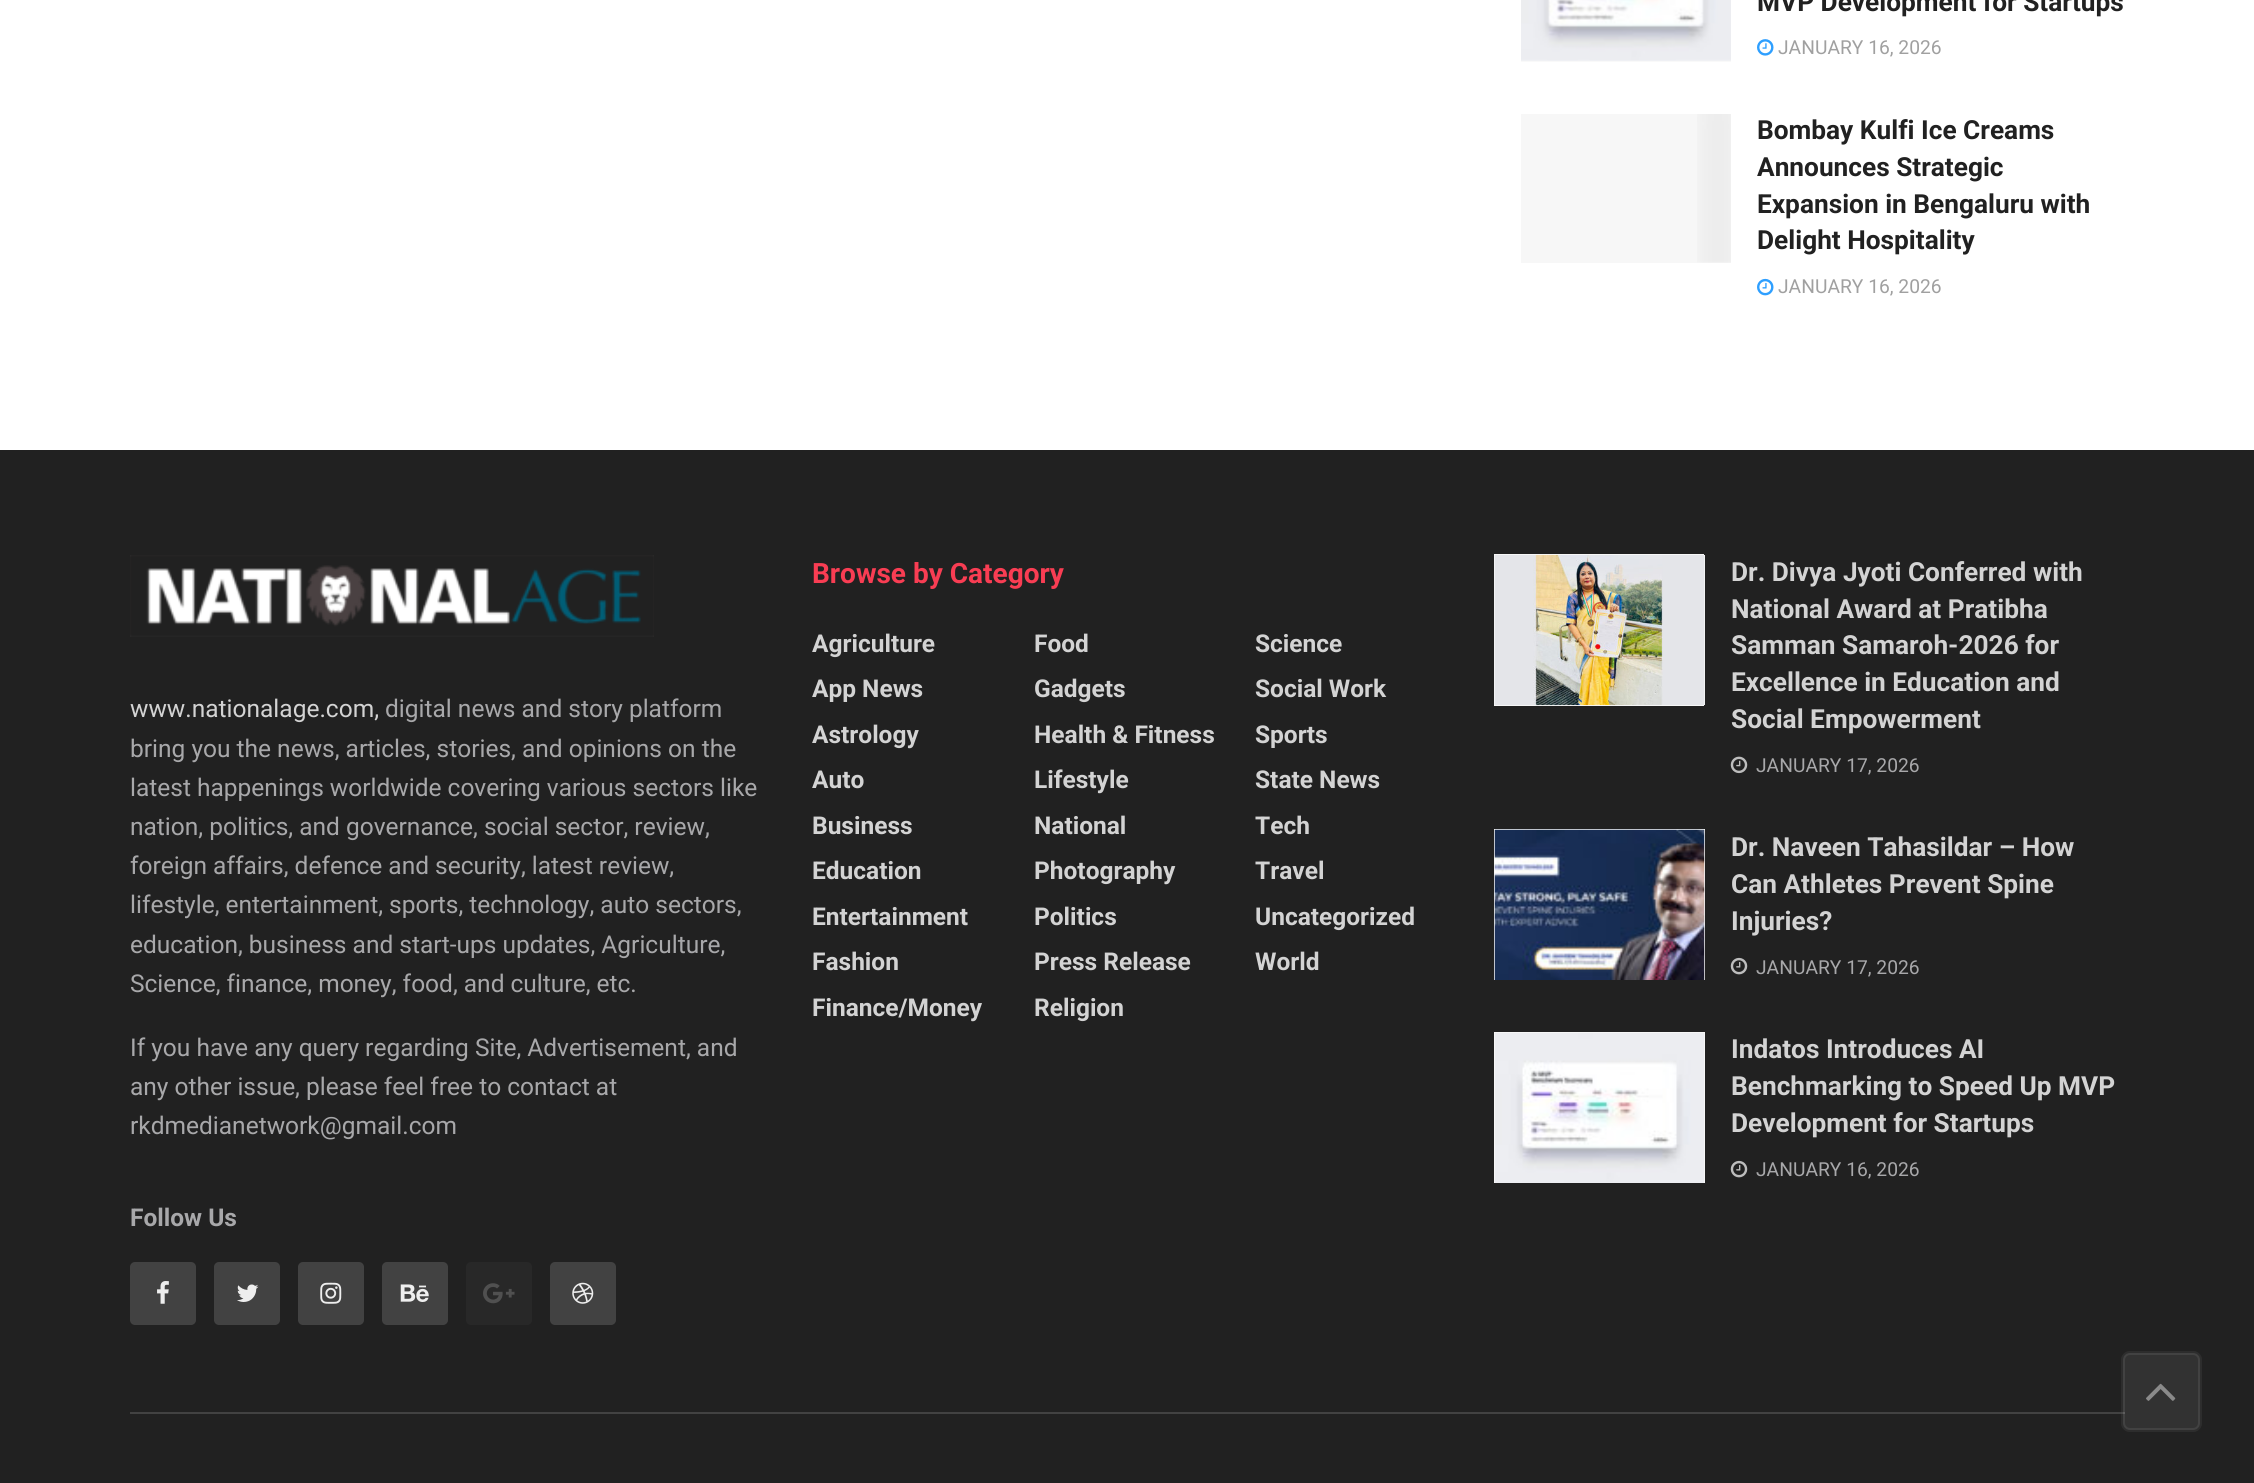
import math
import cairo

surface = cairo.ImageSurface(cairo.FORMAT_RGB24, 2254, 1483)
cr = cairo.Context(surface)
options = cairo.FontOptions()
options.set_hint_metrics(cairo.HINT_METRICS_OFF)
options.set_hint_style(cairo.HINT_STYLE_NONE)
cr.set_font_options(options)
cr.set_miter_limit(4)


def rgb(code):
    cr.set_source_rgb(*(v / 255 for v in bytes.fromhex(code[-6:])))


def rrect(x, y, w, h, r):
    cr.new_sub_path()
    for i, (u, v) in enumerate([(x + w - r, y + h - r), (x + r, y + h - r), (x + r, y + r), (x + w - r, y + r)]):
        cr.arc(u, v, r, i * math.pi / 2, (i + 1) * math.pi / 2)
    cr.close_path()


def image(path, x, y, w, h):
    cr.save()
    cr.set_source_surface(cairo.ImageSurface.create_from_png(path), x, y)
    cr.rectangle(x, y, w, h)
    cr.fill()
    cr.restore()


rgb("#ffffff")
cr.paint()
image("img/1.png", 1521, 0, 210, 61)
rgb("#f9f9f9")
cr.rectangle(1521, 61, 210, 1)
cr.fill()
image("img/2.png", 1757, 39, 17, 17)
rgb("#f7f7f7")
cr.rectangle(1521, 114, 210, 149)
cr.fill()
image("img/3.png", 1697, 114, 34, 149)
image("img/4.png", 1757, 278, 17, 18)
rgb("#212121")
cr.rectangle(0, 450, 2254, 1033)
cr.fill()
image("img/5.png", 130, 555, 524, 82)
rgb("#424242")
rrect(130, 1262, 66, 63, 5)
cr.fill()
image("img/6.png", 157, 1281, 12, 23)
rrect(214, 1262, 66, 63, 5)
cr.fill()
image("img/7.png", 237, 1284, 22, 18)
rrect(298, 1262, 66, 63, 5)
cr.fill()
image("img/8.png", 320, 1282, 22, 22)
rrect(382, 1262, 66, 63, 5)
cr.fill()
image("img/9.png", 400, 1284, 29, 18)
rgb("#282828")
rrect(466, 1262, 66, 63, 5)
cr.fill()
image("img/10.png", 483, 1283, 32, 21)
rgb("#424242")
rrect(550, 1262, 66, 63, 5)
cr.fill()
image("img/11.png", 572, 1282, 22, 22)
rgb("#f7f7f7")
cr.rectangle(1704, 555, 1, 150)
cr.fill()
cr.rectangle(1494, 554, 210, 152)
cr.fill()
image("img/12.png", 1494, 554, 211, 152)
image("img/13.png", 1730, 756, 18, 18)
cr.rectangle(1494, 829, 211, 151)
cr.fill()
image("img/14.png", 1494, 829, 211, 151)
image("img/15.png", 1730, 957, 18, 18)
cr.rectangle(1494, 1032, 211, 151)
cr.fill()
image("img/16.png", 1495, 1033, 209, 150)
image("img/15.png", 1730, 1160, 18, 18)
rgb("#424242")
cr.rectangle(130, 1412, 1995, 2)
cr.fill()
cr.set_source_rgba(0.71, 0.71, 0.71, 0.12)
rrect(2121, 1351, 81, 81, 9)
cr.fill()
rrect(2124, 1354, 75, 75, 6)
cr.set_source_rgba(1, 1, 1, 0.08)
cr.stroke()
rrect(2122, 1352, 79, 79, 8)
cr.set_source_rgba(0, 0, 0, 0.09)
cr.stroke()
image("img/17.png", 2146, 1383, 30, 18)
cr.select_font_face("Roboto", cairo.FONT_SLANT_NORMAL, cairo.FONT_WEIGHT_BOLD)
cr.set_font_size(26.25)
rgb("#212121")
cr.move_to(1757, 11)
cr.show_text("MVP Development for Startups")
cr.select_font_face("Roboto")
cr.set_font_size(19.25)
rgb("#a0a0a0")
cr.move_to(1778, 54)
cr.show_text("JANUARY 16, 2026")
cr.select_font_face("Roboto", cairo.FONT_SLANT_NORMAL, cairo.FONT_WEIGHT_BOLD)
cr.set_font_size(26.25)
rgb("#212121")
for x, y, s in [
    (1757, 139, "Bombay Kulfi Ice Creams"),
    (1757, 176, "Announces Strategic"),
    (1757, 213, "Expansion in Bengaluru with"),
    (1757, 249, "Delight Hospitality"),
]:
    cr.move_to(x, y)
    cr.show_text(s)
cr.select_font_face("Roboto")
cr.set_font_size(19.25)
rgb("#a0a0a0")
cr.move_to(1778, 293)
cr.show_text("JANUARY 16, 2026")
cr.set_font_size(24.5)
rgb("#d3d3d3")
cr.move_to(130, 717)
cr.show_text("www.nationalage.com,")
rgb("#a8a8aa")
for x, y, s in [
    (385, 717, "digital news and story platform"),
    (130, 757, "bring you the news, articles, stories, and opinions on the"),
    (130, 796, "latest happenings worldwide covering various sectors like"),
    (130, 835, "nation, politics, and governance, social sector, review,"),
    (130, 874, "foreign affairs, defence and security, latest review,"),
    (130, 913, "lifestyle, entertainment, sports, technology, auto sectors,"),
    (130, 953, "education, business and start-ups updates, Agriculture,"),
    (130, 992, "Science, finance, money, food, and culture, etc."),
    (130, 1056, "If you have any query regarding Site, Advertisement, and"),
    (130, 1095, "any other issue, please feel free to contact at"),
    (130, 1134, "rkdmedianetwork@gmail.com"),
]:
    cr.move_to(x, y)
    cr.show_text(s)
cr.select_font_face("Roboto", cairo.FONT_SLANT_NORMAL, cairo.FONT_WEIGHT_BOLD)
cr.move_to(130, 1226)
cr.show_text("Follow Us")
cr.set_font_size(28)
rgb("#f93d53")
cr.move_to(812, 583)
cr.show_text("Browse by Category")
cr.set_font_size(24.5)
rgb("#d3d3d3")
for x, y, s in [
    (812, 652, "Agriculture"),
    (1034, 652, "Food"),
    (1255, 652, "Science"),
    (812, 697, "App News"),
    (1034, 697, "Gadgets"),
    (1255, 697, "Social Work"),
    (812, 743, "Astrology"),
    (1034, 743, "Health & Fitness"),
    (1255, 743, "Sports"),
    (812, 788, "Auto"),
    (1034, 788, "Lifestyle"),
    (1255, 788, "State News"),
    (812, 834, "Business"),
    (1034, 834, "National"),
    (1255, 834, "Tech"),
    (812, 879, "Education"),
    (1034, 879, "Photography"),
    (1255, 879, "Travel"),
    (812, 925, "Entertainment"),
    (1034, 925, "Politics"),
    (1255, 925, "Uncategorized"),
    (812, 970, "Fashion"),
    (1034, 970, "Press Release"),
    (1255, 970, "World"),
    (812, 1016, "Finance/Money"),
    (1034, 1016, "Religion"),
]:
    cr.move_to(x, y)
    cr.show_text(s)
cr.set_font_size(26.25)
for x, y, s in [
    (1731, 581, "Dr. Divya Jyoti Conferred with"),
    (1731, 618, "National Award at Pratibha"),
    (1731, 654, "Samman Samaroh-2026 for"),
    (1731, 691, "Excellence in Education and"),
    (1731, 728, "Social Empowerment"),
]:
    cr.move_to(x, y)
    cr.show_text(s)
cr.select_font_face("Roboto")
cr.set_font_size(19.25)
rgb("#a8a8aa")
cr.move_to(1756, 772)
cr.show_text("JANUARY 17, 2026")
cr.select_font_face("Roboto", cairo.FONT_SLANT_NORMAL, cairo.FONT_WEIGHT_BOLD)
cr.set_font_size(26.25)
rgb("#d3d3d3")
for x, y, s in [
    (1731, 856, "Dr. Naveen Tahasildar – How"),
    (1731, 893, "Can Athletes Prevent Spine"),
    (1731, 930, "Injuries?"),
]:
    cr.move_to(x, y)
    cr.show_text(s)
cr.select_font_face("Roboto")
cr.set_font_size(19.25)
rgb("#a8a8aa")
cr.move_to(1756, 974)
cr.show_text("JANUARY 17, 2026")
cr.select_font_face("Roboto", cairo.FONT_SLANT_NORMAL, cairo.FONT_WEIGHT_BOLD)
cr.set_font_size(26.25)
rgb("#d3d3d3")
for x, y, s in [
    (1731, 1058, "Indatos Introduces AI"),
    (1731, 1095, "Benchmarking to Speed Up MVP"),
    (1731, 1132, "Development for Startups"),
]:
    cr.move_to(x, y)
    cr.show_text(s)
cr.select_font_face("Roboto")
cr.set_font_size(19.25)
rgb("#a8a8aa")
cr.move_to(1756, 1176)
cr.show_text("JANUARY 16, 2026")
surface.write_to_png("page.png")
